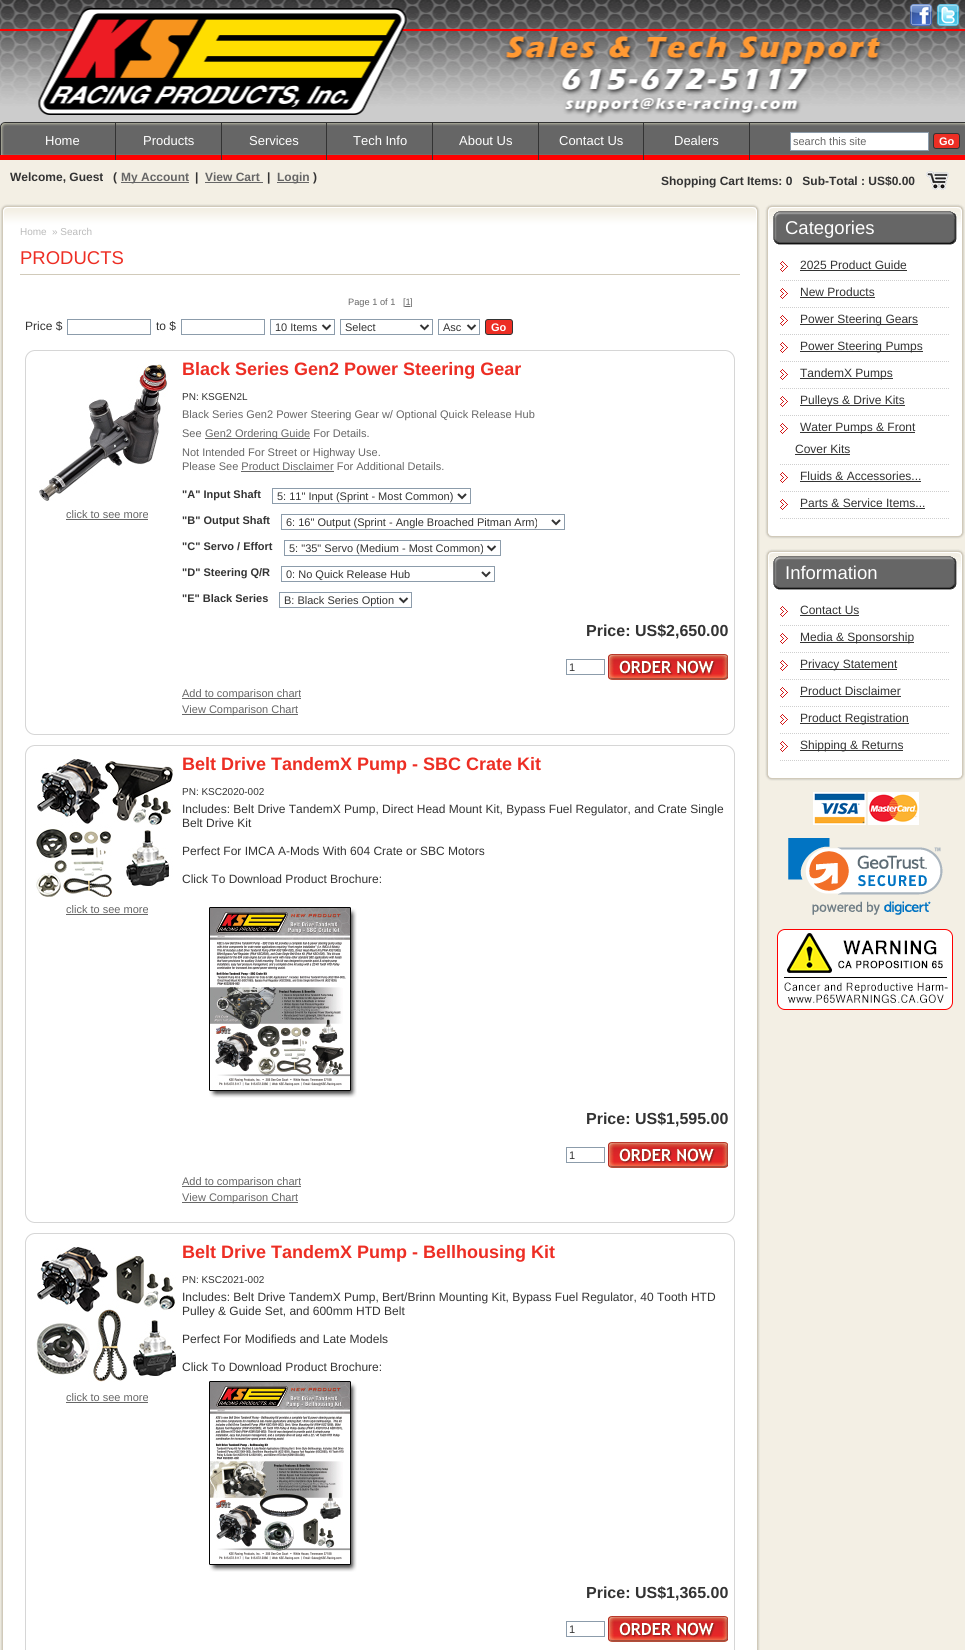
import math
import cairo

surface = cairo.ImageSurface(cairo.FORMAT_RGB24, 965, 1650)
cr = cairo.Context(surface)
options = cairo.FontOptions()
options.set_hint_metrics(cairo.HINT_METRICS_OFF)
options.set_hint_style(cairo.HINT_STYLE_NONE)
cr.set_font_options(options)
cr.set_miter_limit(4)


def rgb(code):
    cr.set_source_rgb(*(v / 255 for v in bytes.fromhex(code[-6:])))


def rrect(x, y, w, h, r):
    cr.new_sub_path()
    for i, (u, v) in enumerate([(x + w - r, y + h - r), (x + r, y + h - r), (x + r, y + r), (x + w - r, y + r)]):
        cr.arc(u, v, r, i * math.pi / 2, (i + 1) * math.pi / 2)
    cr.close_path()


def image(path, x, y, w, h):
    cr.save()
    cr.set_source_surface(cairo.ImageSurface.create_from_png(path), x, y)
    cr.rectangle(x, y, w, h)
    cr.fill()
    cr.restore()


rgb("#f3efe4")
cr.paint()
image("img/1.png", 0, 0, 965, 122)
image("img/2.png", 909, 4, 24, 24)
image("img/3.png", 936, 4, 24, 24)
image("img/4.png", 0, 155, 965, 5)
image("img/5.png", 0, 122, 10, 33)
image("img/6.png", 10, 122, 773, 33)
for x, y, w, h, color in [
    (115, 122, 1, 38, "#333333"),
    (221, 122, 1, 38, "#333333"),
    (326, 122, 1, 38, "#333333"),
    (432, 122, 1, 38, "#333333"),
    (538, 122, 1, 38, "#333333"),
    (643, 122, 1, 38, "#333333"),
    (749, 122, 1, 38, "#333333"),
]:
    rgb(color)
    cr.rectangle(x, y, w, h)
    cr.fill()
image("img/7.png", 783, 122, 177, 33)
rgb("#ffffff")
cr.rectangle(790.5, 132.5, 138, 18)
cr.fill_preserve()
rgb("#8c9cab")
cr.set_line_width(1)
cr.stroke()
rgb("#ed2e24")
rrect(933.5, 133.5, 26, 15, 2.5)
cr.fill_preserve()
rgb("#333333")
cr.stroke()
image("img/8.png", 960, 122, 5, 33)
for x, y, w, h, color in [
    (121, 182, 68, 1, "#666666"),
    (205, 182, 58, 1, "#666666"),
    (277, 182, 32, 1, "#666666"),
]:
    rgb(color)
    cr.rectangle(x, y, w, h)
    cr.fill()
image("img/9.png", 926, 171, 23, 19)
image("img/10.png", 0, 204, 760, 22)
image("img/11.png", 0, 226, 760, 1424)
rgb("#d1caba")
cr.rectangle(20, 274, 720, 1)
cr.fill()
rgb("#666666")
cr.rectangle(405, 306, 5, 1)
cr.fill()
cr.rectangle(67.5, 319.5, 83, 15)
rgb("#8c9cab")
cr.stroke()
cr.rectangle(181.5, 319.5, 83, 15)
cr.stroke()
cr.rectangle(270.5, 319.5, 64, 15)
cr.stroke()
cr.new_path()
cr.move_to(322.5, 325)
cr.line_to(326.5, 329)
cr.line_to(330.5, 325)
rgb("#333333")
cr.set_line_width(2)
cr.stroke()
cr.rectangle(340.5, 319.5, 92, 15)
rgb("#8c9cab")
cr.set_line_width(1)
cr.stroke()
cr.new_path()
cr.move_to(420.5, 325)
cr.line_to(424.5, 329)
cr.line_to(428.5, 325)
rgb("#333333")
cr.set_line_width(2)
cr.stroke()
cr.rectangle(438.5, 319.5, 41, 15)
rgb("#8c9cab")
cr.set_line_width(1)
cr.stroke()
cr.new_path()
cr.move_to(467.5, 325)
cr.line_to(471.5, 329)
cr.line_to(475.5, 325)
rgb("#333333")
cr.set_line_width(2)
cr.stroke()
rgb("#ed2e24")
rrect(485.5, 319.5, 27, 15, 2.5)
cr.fill_preserve()
rgb("#333333")
cr.set_line_width(1)
cr.stroke()
for x, y, w, h, color in [
    (34, 350, 692, 1, "#d6d6d6"),
    (734, 351, 1, 375, "#d6d6d6"),
    (34, 734, 700, 1, "#d6d6d6"),
    (25, 351, 1, 383, "#d6d6d6"),
]:
    rgb(color)
    cr.rectangle(x, y, w, h)
    cr.fill()
image("img/12.png", 25, 350, 9, 9)
image("img/13.png", 726, 350, 9, 9)
image("img/14.png", 25, 726, 9, 9)
image("img/15.png", 726, 726, 9, 9)
image("img/16.png", 39, 364, 129, 137)
for x, y, w, h, color in [
    (66, 519, 82, 1, "#666666"),
    (205, 438, 105, 1, "#666666"),
    (241, 471, 93, 1, "#666666"),
]:
    rgb(color)
    cr.rectangle(x, y, w, h)
    cr.fill()
cr.rectangle(272.5, 488.5, 198, 15)
rgb("#8c9cab")
cr.stroke()
cr.new_path()
cr.move_to(458, 494)
cr.line_to(462, 498)
cr.line_to(466, 494)
rgb("#333333")
cr.set_line_width(2)
cr.stroke()
cr.rectangle(281.5, 514.5, 283, 15)
rgb("#8c9cab")
cr.set_line_width(1)
cr.stroke()
cr.new_path()
cr.move_to(552, 520)
cr.line_to(556, 524)
cr.line_to(560, 520)
rgb("#333333")
cr.set_line_width(2)
cr.stroke()
cr.rectangle(284.5, 540.5, 216, 15)
rgb("#8c9cab")
cr.set_line_width(1)
cr.stroke()
cr.new_path()
cr.move_to(487.5, 546)
cr.line_to(491.5, 550)
cr.line_to(495.5, 546)
rgb("#333333")
cr.set_line_width(2)
cr.stroke()
cr.rectangle(281.5, 566.5, 213, 15)
rgb("#8c9cab")
cr.set_line_width(1)
cr.stroke()
cr.new_path()
cr.move_to(482, 572)
cr.line_to(486, 576)
cr.line_to(490, 572)
rgb("#333333")
cr.set_line_width(2)
cr.stroke()
cr.rectangle(279.5, 592.5, 132, 15)
rgb("#8c9cab")
cr.set_line_width(1)
cr.stroke()
cr.new_path()
cr.move_to(399.5, 598)
cr.line_to(403.5, 602)
cr.line_to(407.5, 598)
rgb("#333333")
cr.set_line_width(2)
cr.stroke()
cr.rectangle(566.5, 659.5, 38, 15)
rgb("#8c9cab")
cr.set_line_width(1)
cr.stroke()
image("img/17.png", 608, 654, 120, 26)
for x, y, w, h, color in [
    (182, 698, 119, 1, "#666666"),
    (182, 714, 116, 1, "#666666"),
    (34, 745, 692, 1, "#d6d6d6"),
    (734, 746, 1, 468, "#d6d6d6"),
    (34, 1222, 700, 1, "#d6d6d6"),
    (25, 746, 1, 476, "#d6d6d6"),
]:
    rgb(color)
    cr.rectangle(x, y, w, h)
    cr.fill()
image("img/12.png", 25, 745, 9, 9)
image("img/13.png", 726, 745, 9, 9)
image("img/14.png", 25, 1214, 9, 9)
image("img/15.png", 726, 1214, 9, 9)
image("img/18.png", 36, 759, 137, 138)
rgb("#666666")
cr.rectangle(66, 914, 82, 1)
cr.fill()
image("img/19.png", 209, 907, 148, 191)
cr.rectangle(566.5, 1147.5, 38, 15)
rgb("#8c9cab")
cr.stroke()
image("img/17.png", 608, 1142, 120, 26)
for x, y, w, h, color in [
    (182, 1186, 119, 1, "#666666"),
    (182, 1202, 116, 1, "#666666"),
    (34, 1233, 692, 1, "#d6d6d6"),
    (734, 1234, 1, 416, "#d6d6d6"),
    (25, 1234, 1, 416, "#d6d6d6"),
]:
    rgb(color)
    cr.rectangle(x, y, w, h)
    cr.fill()
image("img/12.png", 25, 1233, 9, 9)
image("img/13.png", 726, 1233, 9, 9)
image("img/20.png", 36, 1247, 140, 135)
rgb("#666666")
cr.rectangle(66, 1402, 82, 1)
cr.fill()
image("img/21.png", 209, 1381, 148, 191)
cr.rectangle(566.5, 1621.5, 38, 15)
rgb("#8c9cab")
cr.stroke()
image("img/17.png", 608, 1616, 120, 26)
image("img/22.png", 765, 245, 200, 288)
image("img/23.png", 765, 204, 200, 41)
image("img/24.png", 765, 533, 200, 6)
image("img/25.png", 780, 280, 169, 1)
image("img/26.png", 780, 261, 8, 11)
rgb("#333333")
cr.rectangle(800, 270, 107, 1)
cr.fill()
image("img/25.png", 780, 307, 169, 1)
image("img/26.png", 780, 288, 8, 11)
cr.rectangle(800, 297, 75, 1)
cr.fill()
image("img/25.png", 780, 334, 169, 1)
image("img/26.png", 780, 315, 8, 11)
cr.rectangle(800, 324, 118, 1)
cr.fill()
image("img/25.png", 780, 361, 169, 1)
image("img/26.png", 780, 342, 8, 11)
cr.rectangle(800, 351, 123, 1)
cr.fill()
image("img/25.png", 780, 388, 169, 1)
image("img/26.png", 780, 369, 8, 11)
cr.rectangle(800, 378, 93, 1)
cr.fill()
image("img/25.png", 780, 415, 169, 1)
image("img/26.png", 780, 396, 8, 11)
cr.rectangle(800, 405, 105, 1)
cr.fill()
image("img/25.png", 780, 464, 169, 1)
image("img/26.png", 780, 423, 8, 11)
cr.rectangle(800, 432, 115, 1)
cr.fill()
cr.rectangle(795, 454, 55, 1)
cr.fill()
image("img/25.png", 780, 491, 169, 1)
image("img/26.png", 780, 472, 8, 11)
cr.rectangle(800, 481, 121, 1)
cr.fill()
image("img/25.png", 780, 518, 169, 1)
image("img/26.png", 780, 499, 8, 11)
cr.rectangle(800, 508, 125, 1)
cr.fill()
image("img/27.png", 765, 590, 200, 185)
image("img/23.png", 765, 549, 200, 41)
image("img/24.png", 765, 775, 200, 6)
image("img/25.png", 780, 625, 169, 1)
image("img/26.png", 780, 606, 8, 11)
cr.rectangle(800, 615, 59, 1)
cr.fill()
image("img/25.png", 780, 652, 169, 1)
image("img/26.png", 780, 633, 8, 11)
cr.rectangle(800, 642, 114, 1)
cr.fill()
image("img/25.png", 780, 679, 169, 1)
image("img/26.png", 780, 660, 8, 11)
cr.rectangle(800, 669, 97, 1)
cr.fill()
image("img/25.png", 780, 706, 169, 1)
image("img/26.png", 780, 687, 8, 11)
cr.rectangle(800, 696, 101, 1)
cr.fill()
image("img/25.png", 780, 733, 169, 1)
image("img/26.png", 780, 714, 8, 11)
cr.rectangle(800, 723, 109, 1)
cr.fill()
image("img/25.png", 780, 760, 169, 1)
image("img/26.png", 780, 741, 8, 11)
cr.rectangle(800, 750, 103, 1)
cr.fill()
image("img/28.png", 813, 792, 106, 33)
image("img/29.png", 788, 838, 155, 77)
image("img/30.png", 777, 929, 176, 81)
cr.select_font_face("Liberation Sans")
cr.set_font_size(13)
rgb("#ffffff")
for x, y, s in [
    (45, 145, "Home"),
    (143, 145, "Products"),
    (249, 145, "Services"),
    (353, 145, "Tech Info"),
    (459, 145, "About Us"),
    (559, 145, "Contact Us"),
    (674, 145, "Dealers"),
]:
    cr.move_to(x, y)
    cr.show_text(s)
cr.set_font_size(11)
rgb("#666666")
cr.move_to(793, 145)
cr.show_text("search this site")
cr.select_font_face("Liberation Sans", cairo.FONT_SLANT_NORMAL, cairo.FONT_WEIGHT_BOLD)
rgb("#ffffff")
cr.move_to(939, 145)
cr.show_text("Go")
cr.set_font_size(12)
rgb("#333333")
cr.move_to(10, 181)
cr.show_text("Welcome, Guest")
cr.move_to(113, 181)
cr.show_text("(")
rgb("#666666")
cr.move_to(121, 181)
cr.show_text("My Account")
rgb("#333333")
cr.move_to(195, 181)
cr.show_text("|")
rgb("#666666")
cr.move_to(205, 181)
cr.show_text("View Cart")
rgb("#333333")
cr.move_to(267, 181)
cr.show_text("|")
rgb("#666666")
cr.move_to(277, 181)
cr.show_text("Login")
rgb("#333333")
cr.move_to(313, 181)
cr.show_text(")")
cr.move_to(661, 185)
cr.show_text("Shopping Cart Items: 0   Sub-Total : US$0.00")
cr.select_font_face("Liberation Sans")
cr.set_font_size(10)
rgb("#bbbbbb")
cr.move_to(20, 235)
cr.show_text("Home")
cr.move_to(52, 235)
cr.show_text("» Search")
cr.set_font_size(18.5)
rgb("#ed2e24")
cr.move_to(20, 264)
cr.show_text("PRODUCTS")
cr.set_font_size(9.25)
rgb("#666666")
cr.move_to(348, 305)
cr.show_text("Page 1 of 1   [1")
cr.move_to(410, 305)
cr.show_text("]")
cr.set_font_size(12)
rgb("#333333")
cr.move_to(25, 330)
cr.show_text("Price $")
cr.move_to(156, 330)
cr.show_text("to $")
cr.set_font_size(11)
for x, y, s in [
    (275, 331, "10 Items"),
    (345, 331, "Select"),
    (443, 331, "Asc"),
]:
    cr.move_to(x, y)
    cr.show_text(s)
cr.select_font_face("Liberation Sans", cairo.FONT_SLANT_NORMAL, cairo.FONT_WEIGHT_BOLD)
rgb("#ffffff")
cr.move_to(491, 331)
cr.show_text("Go")
cr.set_font_size(18)
rgb("#ed2e24")
cr.move_to(182, 375)
cr.show_text("Black Series Gen2 Power Steering Gear")
cr.select_font_face("Liberation Sans")
cr.set_font_size(11)
rgb("#666666")
cr.move_to(66, 518)
cr.show_text("click to see more")
cr.set_font_size(10)
rgb("#333333")
cr.move_to(182, 400)
cr.show_text("PN: KSGEN2L")
cr.set_font_size(11)
rgb("#666666")
for x, y, s in [
    (182, 418, "Black Series Gen2 Power Steering Gear w/ Optional Quick Release Hub"),
    (182, 437, "See"),
    (205, 437, "Gen2 Ordering Guide For Details."),
    (182, 456, "Not Intended For Street or Highway Use."),
    (182, 470, "Please See Product Disclaimer For Additional Details."),
]:
    cr.move_to(x, y)
    cr.show_text(s)
cr.select_font_face("Liberation Sans", cairo.FONT_SLANT_NORMAL, cairo.FONT_WEIGHT_BOLD)
rgb("#333333")
cr.move_to(182, 498)
cr.show_text("\"A\" Input Shaft")
cr.select_font_face("Liberation Sans")
cr.move_to(277, 500)
cr.show_text("5: 11\" Input (Sprint - Most Common)")
cr.select_font_face("Liberation Sans", cairo.FONT_SLANT_NORMAL, cairo.FONT_WEIGHT_BOLD)
cr.move_to(182, 524)
cr.show_text("\"B\" Output Shaft")
cr.select_font_face("Liberation Sans")
cr.move_to(286, 526)
cr.show_text("6: 16\" Output (Sprint - Angle Broached Pitman Arm)")
cr.select_font_face("Liberation Sans", cairo.FONT_SLANT_NORMAL, cairo.FONT_WEIGHT_BOLD)
cr.move_to(182, 550)
cr.show_text("\"C\" Servo / Effort")
cr.select_font_face("Liberation Sans")
cr.move_to(289, 552)
cr.show_text("5: \"35\" Servo (Medium - Most Common)")
cr.select_font_face("Liberation Sans", cairo.FONT_SLANT_NORMAL, cairo.FONT_WEIGHT_BOLD)
cr.move_to(182, 576)
cr.show_text("\"D\" Steering Q/R")
cr.select_font_face("Liberation Sans")
cr.move_to(286, 578)
cr.show_text("0: No Quick Release Hub")
cr.select_font_face("Liberation Sans", cairo.FONT_SLANT_NORMAL, cairo.FONT_WEIGHT_BOLD)
cr.move_to(182, 602)
cr.show_text("\"E\" Black Series")
cr.select_font_face("Liberation Sans")
cr.move_to(284, 604)
cr.show_text("B: Black Series Option")
cr.select_font_face("Liberation Sans", cairo.FONT_SLANT_NORMAL, cairo.FONT_WEIGHT_BOLD)
cr.set_font_size(16)
cr.move_to(586, 636)
cr.show_text("Price: US$2,650.00")
cr.select_font_face("Liberation Sans")
cr.set_font_size(11)
cr.move_to(569, 671)
cr.show_text("1")
rgb("#666666")
cr.move_to(182, 697)
cr.show_text("Add to comparison chart")
cr.move_to(182, 713)
cr.show_text("View Comparison Chart")
cr.select_font_face("Liberation Sans", cairo.FONT_SLANT_NORMAL, cairo.FONT_WEIGHT_BOLD)
cr.set_font_size(18)
rgb("#ed2e24")
cr.move_to(182, 770)
cr.show_text("Belt Drive TandemX Pump - SBC Crate Kit")
cr.select_font_face("Liberation Sans")
cr.set_font_size(11)
rgb("#666666")
cr.move_to(66, 913)
cr.show_text("click to see more")
cr.set_font_size(10)
rgb("#333333")
cr.move_to(182, 795)
cr.show_text("PN: KSC2020-002")
cr.set_font_size(12)
for x, y, s in [
    (182, 813, "Includes: Belt Drive TandemX Pump, Direct Head Mount Kit, Bypass Fuel Regulator, and Crate Single"),
    (182, 827, "Belt Drive Kit"),
    (182, 855, "Perfect For IMCA A-Mods With 604 Crate or SBC Motors"),
    (182, 883, "Click To Download Product Brochure:"),
]:
    cr.move_to(x, y)
    cr.show_text(s)
cr.select_font_face("Liberation Sans", cairo.FONT_SLANT_NORMAL, cairo.FONT_WEIGHT_BOLD)
cr.set_font_size(16)
cr.move_to(586, 1124)
cr.show_text("Price: US$1,595.00")
cr.select_font_face("Liberation Sans")
cr.set_font_size(11)
cr.move_to(569, 1159)
cr.show_text("1")
rgb("#666666")
cr.move_to(182, 1185)
cr.show_text("Add to comparison chart")
cr.move_to(182, 1201)
cr.show_text("View Comparison Chart")
cr.select_font_face("Liberation Sans", cairo.FONT_SLANT_NORMAL, cairo.FONT_WEIGHT_BOLD)
cr.set_font_size(18)
rgb("#ed2e24")
cr.move_to(182, 1258)
cr.show_text("Belt Drive TandemX Pump - Bellhousing Kit")
cr.select_font_face("Liberation Sans")
cr.set_font_size(11)
rgb("#666666")
cr.move_to(66, 1401)
cr.show_text("click to see more")
cr.set_font_size(10)
rgb("#333333")
cr.move_to(182, 1283)
cr.show_text("PN: KSC2021-002")
cr.set_font_size(12)
for x, y, s in [
    (182, 1301, "Includes: Belt Drive TandemX Pump, Bert/Brinn Mounting Kit, Bypass Fuel Regulator, 40 Tooth HTD"),
    (182, 1315, "Pulley & Guide Set, and 600mm HTD Belt"),
    (182, 1343, "Perfect For Modifieds and Late Models"),
    (182, 1371, "Click To Download Product Brochure:"),
]:
    cr.move_to(x, y)
    cr.show_text(s)
cr.select_font_face("Liberation Sans", cairo.FONT_SLANT_NORMAL, cairo.FONT_WEIGHT_BOLD)
cr.set_font_size(16)
cr.move_to(586, 1598)
cr.show_text("Price: US$1,365.00")
cr.select_font_face("Liberation Sans")
cr.set_font_size(11)
cr.move_to(569, 1633)
cr.show_text("1")
cr.set_font_size(18.5)
rgb("#ffffff")
cr.move_to(785, 234)
cr.show_text("Categories")
cr.set_font_size(12)
rgb("#333333")
for x, y, s in [
    (800, 269, "2025 Product Guide"),
    (800, 296, "New Products"),
    (800, 323, "Power Steering Gears"),
    (800, 350, "Power Steering Pumps"),
    (800, 377, "TandemX Pumps"),
    (800, 404, "Pulleys & Drive Kits"),
    (800, 431, "Water Pumps & Front"),
    (795, 453, "Cover Kits"),
    (800, 480, "Fluids & Accessories..."),
    (800, 507, "Parts & Service Items..."),
]:
    cr.move_to(x, y)
    cr.show_text(s)
cr.set_font_size(18.5)
rgb("#ffffff")
cr.move_to(785, 579)
cr.show_text("Information")
cr.set_font_size(12)
rgb("#333333")
for x, y, s in [
    (800, 614, "Contact Us"),
    (800, 641, "Media & Sponsorship"),
    (800, 668, "Privacy Statement"),
    (800, 695, "Product Disclaimer"),
    (800, 722, "Product Registration"),
    (800, 749, "Shipping & Returns"),
]:
    cr.move_to(x, y)
    cr.show_text(s)
surface.write_to_png("page.png")
